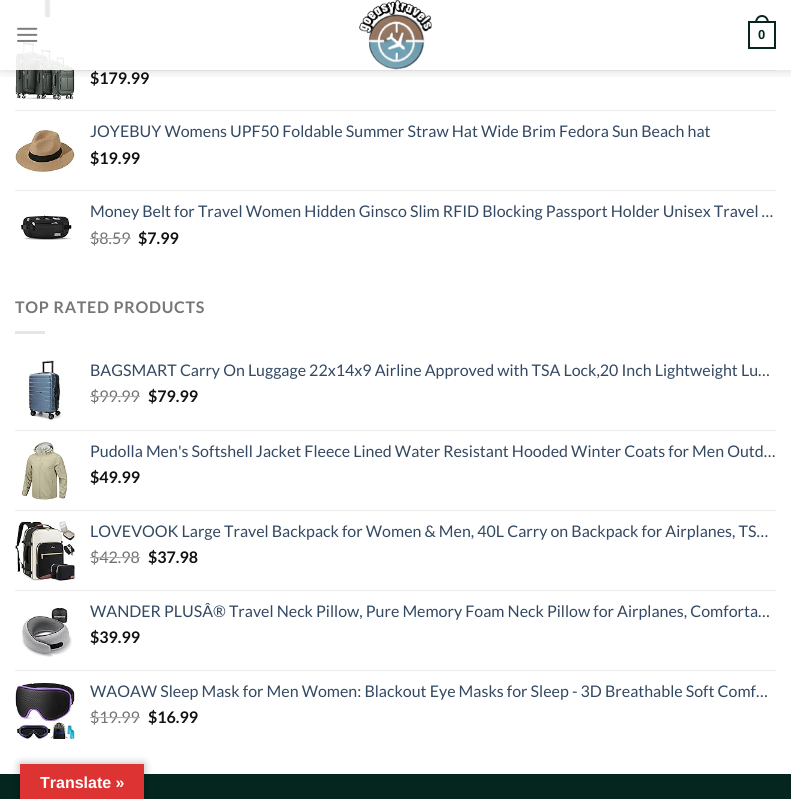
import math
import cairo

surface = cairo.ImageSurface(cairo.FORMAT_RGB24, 791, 799)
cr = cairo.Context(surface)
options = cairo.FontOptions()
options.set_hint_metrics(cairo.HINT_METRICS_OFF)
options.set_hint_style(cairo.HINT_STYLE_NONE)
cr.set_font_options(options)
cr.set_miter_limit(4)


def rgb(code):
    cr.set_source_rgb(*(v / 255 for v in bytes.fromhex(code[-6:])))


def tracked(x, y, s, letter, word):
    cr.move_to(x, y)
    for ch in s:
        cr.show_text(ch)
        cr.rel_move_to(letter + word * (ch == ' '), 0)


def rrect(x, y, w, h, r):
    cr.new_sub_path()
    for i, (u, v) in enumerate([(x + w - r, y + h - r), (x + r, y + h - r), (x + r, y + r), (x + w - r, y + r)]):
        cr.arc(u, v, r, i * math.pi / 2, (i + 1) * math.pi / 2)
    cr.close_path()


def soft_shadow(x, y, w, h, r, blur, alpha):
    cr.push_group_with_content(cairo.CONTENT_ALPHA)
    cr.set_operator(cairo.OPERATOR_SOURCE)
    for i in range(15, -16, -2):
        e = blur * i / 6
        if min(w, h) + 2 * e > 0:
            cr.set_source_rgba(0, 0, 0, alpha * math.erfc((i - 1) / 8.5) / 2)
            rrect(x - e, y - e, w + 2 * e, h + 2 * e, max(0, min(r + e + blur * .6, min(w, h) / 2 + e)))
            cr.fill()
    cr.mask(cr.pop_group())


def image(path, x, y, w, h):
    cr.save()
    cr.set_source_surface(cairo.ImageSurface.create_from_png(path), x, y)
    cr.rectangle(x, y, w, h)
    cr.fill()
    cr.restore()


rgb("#ffffff")
cr.paint()
image("img/3.png", 44, 0, 7, 18)
rgb("#ececec")
cr.rectangle(15, 30, 761, 1)
cr.fill()
image("img/4.png", 15, 41, 60, 60)
cr.save()
cr.rectangle(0, 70, 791, 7)
cr.clip()
rgb("#000000")
soft_shadow(1, 1, 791, 70, 0, 5, 0.15)
cr.restore()
cr.set_source_rgba(1, 1, 1, 0.9)
cr.rectangle(15, 0, 761, 70)
cr.fill()
image("img/1.png", 17, 27, 21, 15)
image("img/2.png", 359, 0, 73, 70)
cr.rectangle(749, 22, 26, 26)
rgb("#04261e")
cr.stroke()
cr.set_fill_rule(cairo.FILL_RULE_EVEN_ODD)
cr.new_path()
cr.move_to(762, 15)
cr.curve_to(766.5, 15, 769, 19, 769, 23)
cr.line_to(755, 23)
cr.curve_to(755, 19, 757.5, 15, 762, 15)
cr.close_path()
cr.move_to(762, 17)
cr.curve_to(765.5, 17, 767, 20, 767, 23)
cr.line_to(757, 23)
cr.curve_to(757, 20, 758.5, 17, 762, 17)
cr.close_path()
cr.fill()
cr.set_source_rgba(0.467, 0.467, 0.467, 0.1)
cr.rectangle(15, 70, 761, 1)
cr.fill()
rgb("#ececec")
cr.rectangle(15, 110, 761, 1)
cr.fill()
image("img/5.png", 15, 129, 60, 48)
cr.rectangle(15, 190, 761, 1)
cr.fill()
image("img/6.png", 21, 215, 51, 25)
rgb("#e6e6e6")
cr.rectangle(15, 331, 30, 3)
cr.fill()
image("img/7.png", 25, 360, 38, 60)
rgb("#ececec")
cr.rectangle(15, 430, 761, 1)
cr.fill()
image("img/8.png", 21, 441, 48, 60)
cr.rectangle(15, 510, 761, 1)
cr.fill()
image("img/9.png", 15, 521, 60, 60)
cr.rectangle(15, 590, 761, 1)
cr.fill()
image("img/10.png", 22, 608, 50, 49)
cr.rectangle(15, 670, 761, 1)
cr.fill()
image("img/11.png", 15, 681, 60, 59)
rgb("#04261e")
cr.rectangle(0, 775, 791, 24)
cr.fill()
rgb("#04241d")
cr.rectangle(0, 774, 791, 1)
cr.fill()
rgb("#000000")
soft_shadow(20, 764, 124, 35, 0, 4.5, 0.3)
rgb("#dd3333")
cr.rectangle(20, 764, 124, 35)
cr.fill()
cr.select_font_face("Liberation Sans", cairo.FONT_SLANT_NORMAL, cairo.FONT_WEIGHT_BOLD)
cr.set_font_size(13)
rgb("#04261e")
cr.move_to(758, 39)
cr.show_text("0")
cr.select_font_face("Lato", cairo.FONT_SLANT_NORMAL, cairo.FONT_WEIGHT_BOLD)
cr.set_font_size(16)
rgb("#111111")
cr.move_to(90, 84)
cr.show_text("$179.99")
cr.select_font_face("Lato")
rgb("#334862")
cr.move_to(90, 137)
cr.show_text("JOYEBUY Womens UPF50 Foldable Summer Straw Hat Wide Brim Fedora Sun Beach hat")
cr.select_font_face("Lato", cairo.FONT_SLANT_NORMAL, cairo.FONT_WEIGHT_BOLD)
rgb("#111111")
cr.move_to(90, 164)
cr.show_text("$19.99")
cr.select_font_face("Lato")
rgb("#334862")
cr.move_to(90, 217)
cr.show_text("Money Belt for Travel Women Hidden Ginsco Slim RFID Blocking Passport Holder Unisex Travel …")
rgb("#707070")
cr.move_to(90, 244)
cr.show_text("$8.59")
rgb("#adadad")
cr.rectangle(90, 238, 41, 1)
cr.fill()
cr.select_font_face("Lato", cairo.FONT_SLANT_NORMAL, cairo.FONT_WEIGHT_BOLD)
rgb("#111111")
cr.move_to(138, 244)
cr.show_text("$7.99")
rgb("#777777")
tracked(15, 313, "TOP RATED PRODUCTS", 0.75, 0)
cr.select_font_face("Lato")
rgb("#334862")
cr.move_to(90, 376)
cr.show_text("BAGSMART Carry On Luggage 22x14x9 Airline Approved with TSA Lock,20 Inch Lightweight Lu…")
rgb("#707070")
cr.move_to(90, 402)
cr.show_text("$99.99")
rgb("#adadad")
cr.rectangle(90, 396, 50, 1)
cr.fill()
cr.select_font_face("Lato", cairo.FONT_SLANT_NORMAL, cairo.FONT_WEIGHT_BOLD)
rgb("#111111")
cr.move_to(148, 402)
cr.show_text("$79.99")
cr.select_font_face("Lato")
rgb("#334862")
cr.move_to(90, 457)
cr.show_text("Pudolla Men's Softshell Jacket Fleece Lined Water Resistant Hooded Winter Coats for Men Outd…")
cr.select_font_face("Lato", cairo.FONT_SLANT_NORMAL, cairo.FONT_WEIGHT_BOLD)
rgb("#111111")
cr.move_to(90, 483)
cr.show_text("$49.99")
cr.select_font_face("Lato")
rgb("#334862")
cr.move_to(90, 537)
cr.show_text("LOVEVOOK Large Travel Backpack for Women & Men, 40L Carry on Backpack for Airplanes, TS…")
rgb("#707070")
cr.move_to(90, 563)
cr.show_text("$42.98")
rgb("#adadad")
cr.rectangle(90, 557, 50, 1)
cr.fill()
cr.select_font_face("Lato", cairo.FONT_SLANT_NORMAL, cairo.FONT_WEIGHT_BOLD)
rgb("#111111")
cr.move_to(148, 563)
cr.show_text("$37.98")
cr.select_font_face("Lato")
rgb("#334862")
cr.move_to(90, 617)
cr.show_text("WANDER PLUSÂ® Travel Neck Pillow, Pure Memory Foam Neck Pillow for Airplanes, Comforta…")
cr.select_font_face("Lato", cairo.FONT_SLANT_NORMAL, cairo.FONT_WEIGHT_BOLD)
rgb("#111111")
cr.move_to(90, 643)
cr.show_text("$39.99")
cr.select_font_face("Lato")
rgb("#334862")
cr.move_to(90, 697)
cr.show_text("WAOAW Sleep Mask for Men Women: Blackout Eye Masks for Sleep - 3D Breathable Soft Comf…")
rgb("#707070")
cr.move_to(90, 723)
cr.show_text("$19.99")
rgb("#adadad")
cr.rectangle(90, 717, 50, 1)
cr.fill()
cr.select_font_face("Lato", cairo.FONT_SLANT_NORMAL, cairo.FONT_WEIGHT_BOLD)
rgb("#111111")
cr.move_to(148, 723)
cr.show_text("$16.99")
cr.select_font_face("Liberation Sans", cairo.FONT_SLANT_NORMAL, cairo.FONT_WEIGHT_BOLD)
rgb("#ffffff")
cr.move_to(40, 788)
cr.show_text("Translate »")
surface.write_to_png("page.png")
